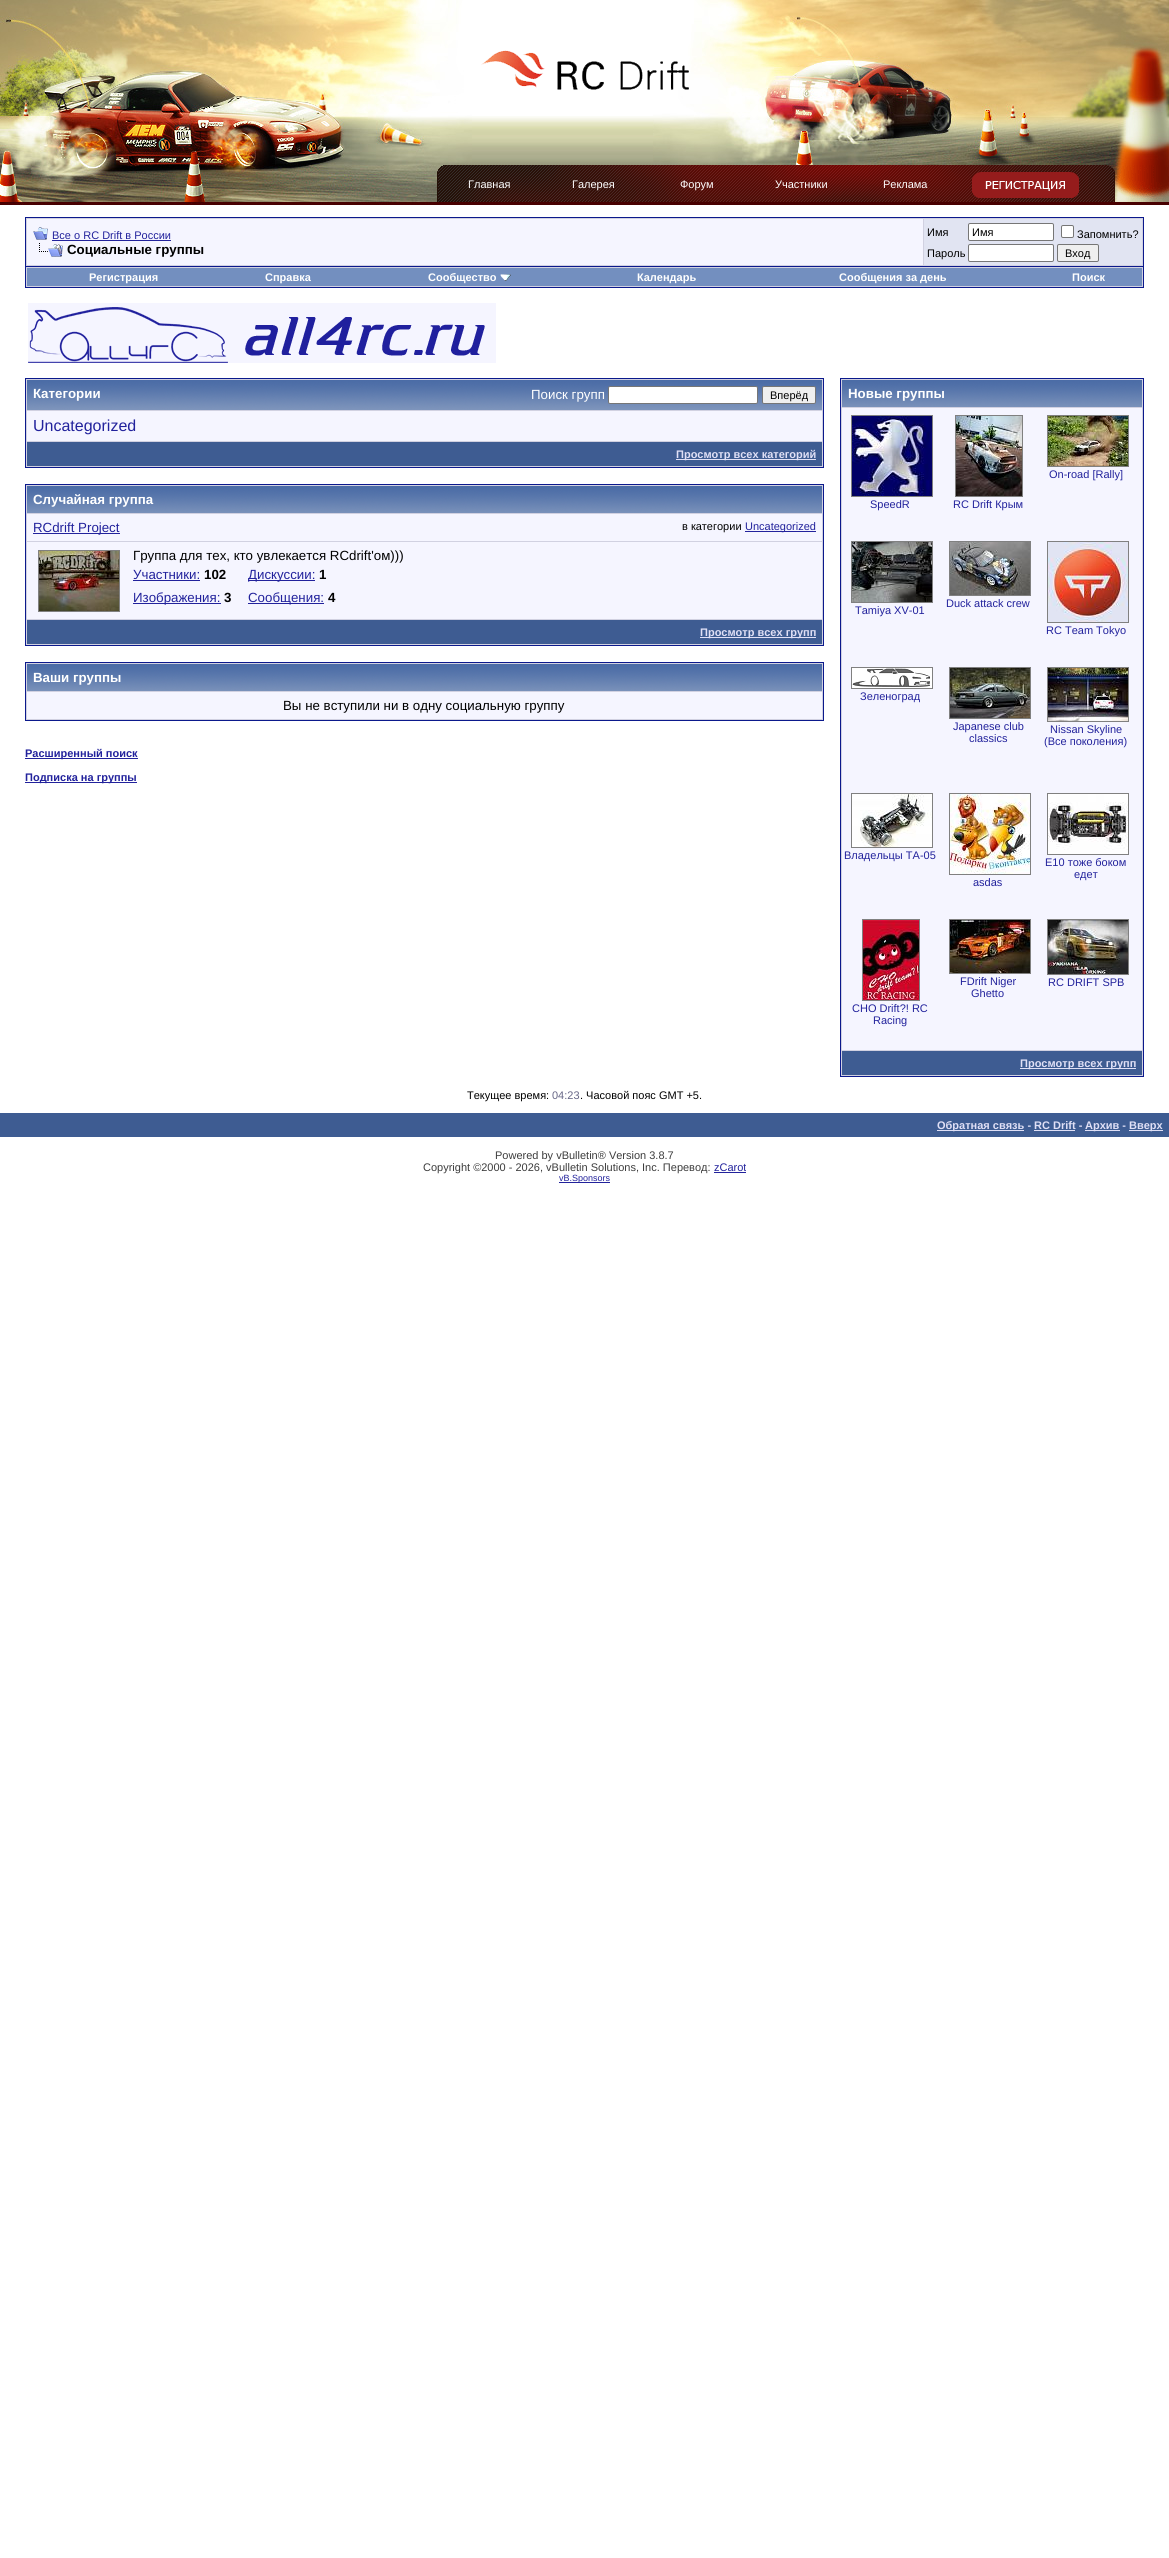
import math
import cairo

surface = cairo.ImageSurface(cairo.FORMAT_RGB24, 1169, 2558)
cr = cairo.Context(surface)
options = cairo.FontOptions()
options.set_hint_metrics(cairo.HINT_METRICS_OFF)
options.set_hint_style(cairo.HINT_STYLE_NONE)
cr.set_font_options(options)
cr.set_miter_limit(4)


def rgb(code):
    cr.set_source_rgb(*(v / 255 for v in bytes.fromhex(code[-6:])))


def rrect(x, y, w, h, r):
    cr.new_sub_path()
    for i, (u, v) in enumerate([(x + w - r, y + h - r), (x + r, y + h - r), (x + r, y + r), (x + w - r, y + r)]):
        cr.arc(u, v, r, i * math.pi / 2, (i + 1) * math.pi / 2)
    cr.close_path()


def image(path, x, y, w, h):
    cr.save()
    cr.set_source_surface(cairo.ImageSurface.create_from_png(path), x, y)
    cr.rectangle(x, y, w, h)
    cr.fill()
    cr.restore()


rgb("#ffffff")
cr.paint()
image("img/1.png", 472, 116, 181, 49)
image("img/2.png", 0, 0, 472, 165)
image("img/3.png", 653, 0, 516, 165)
image("img/4.png", 481, 50, 208, 40)
image("img/5.png", 0, 165, 443, 40)
image("img/6.png", 437, 165, 732, 40)
image("img/7.png", 972, 172, 107, 26)
rgb("#d1d1e1")
cr.rectangle(25.5, 217.5, 1118, 49)
cr.fill_preserve()
rgb("#0b198c")
cr.set_line_width(1)
cr.stroke()
rgb("#f5f5ff")
cr.rectangle(27, 219, 896, 46)
cr.fill()
image("img/8.png", 33, 227, 15, 13)
rgb("#22229c")
cr.rectangle(52, 240, 119, 1)
cr.fill()
image("img/9.png", 39, 243, 24, 14)
rgb("#e1e4f2")
cr.rectangle(924, 219, 218, 46)
cr.fill()
rgb("#ffffff")
rrect(968.5, 223.5, 85, 17, 1.5)
cr.fill_preserve()
rgb("#767676")
cr.stroke()
rgb("#ffffff")
rrect(1061.5, 225.5, 12, 12, 1.5)
cr.fill_preserve()
rgb("#767676")
cr.stroke()
rgb("#ffffff")
rrect(968.5, 244.5, 85, 17, 1.5)
cr.fill_preserve()
rgb("#767676")
cr.stroke()
rgb("#efefef")
rrect(1057.5, 244.5, 41, 17, 1.5)
cr.fill_preserve()
rgb("#767676")
cr.stroke()
for x, y, w, h, color in [
    (26, 267, 1117, 20, "#d1d1e1"),
    (1143, 267, 1, 21, "#0b198c"),
    (25, 287, 1119, 1, "#0b198c"),
    (25, 267, 1, 21, "#0b198c"),
    (27, 268, 1115, 18, "#738fbf"),
]:
    rgb(color)
    cr.rectangle(x, y, w, h)
    cr.fill()
image("img/10.png", 500, 274, 11, 7)
image("img/11.png", 28, 303, 468, 60)
rgb("#d1d1e1")
cr.rectangle(25.5, 378.5, 798, 89)
cr.fill_preserve()
rgb("#0b198c")
cr.stroke()
image("img/12.png", 27, 380, 795, 30)
rgb("#ffffff")
rrect(608.5, 386.5, 149, 17, 1.5)
cr.fill_preserve()
rgb("#767676")
cr.stroke()
rgb("#efefef")
rrect(762.5, 386.5, 53, 17, 1.5)
cr.fill_preserve()
rgb("#767676")
cr.stroke()
for x, y, w, h, color in [
    (27, 411, 795, 30, "#f5f5ff"),
    (27, 442, 795, 24, "#3e5c92"),
    (676, 459, 140, 1, "#e0e0f6"),
]:
    rgb(color)
    cr.rectangle(x, y, w, h)
    cr.fill()
rgb("#d1d1e1")
cr.rectangle(25.5, 484.5, 798, 161)
cr.fill_preserve()
rgb("#0b198c")
cr.stroke()
image("img/13.png", 27, 486, 795, 27)
for x, y, w, h, color in [
    (27, 514, 795, 27, "#f5f5ff"),
    (33, 533, 87, 1, "#22229c"),
    (745, 531, 71, 1, "#22229c"),
    (27, 542, 795, 77, "#f5f5ff"),
]:
    rgb(color)
    cr.rectangle(x, y, w, h)
    cr.fill()
cr.rectangle(38.5, 550.5, 81, 61)
rgb("#808080")
cr.stroke()
image("img/14.png", 39, 551, 80, 60)
for x, y, w, h, color in [
    (133, 580, 67, 1, "#22229c"),
    (133, 603, 88, 1, "#22229c"),
    (248, 580, 67, 1, "#22229c"),
    (248, 603, 76, 1, "#22229c"),
    (27, 620, 795, 24, "#3e5c92"),
    (700, 637, 116, 1, "#e0e0f6"),
]:
    rgb(color)
    cr.rectangle(x, y, w, h)
    cr.fill()
rgb("#d1d1e1")
cr.rectangle(25.5, 662.5, 798, 58)
cr.fill_preserve()
rgb("#0b198c")
cr.stroke()
image("img/13.png", 27, 664, 795, 27)
rgb("#f5f5ff")
cr.rectangle(27, 692, 795, 27)
cr.fill()
rgb("#d1d1e1")
cr.rectangle(840.5, 378.5, 303, 698)
cr.fill_preserve()
rgb("#0b198c")
cr.stroke()
image("img/15.png", 842, 380, 300, 27)
rgb("#f5f5ff")
cr.rectangle(842, 408, 300, 642)
cr.fill()
cr.rectangle(1047.5, 415.5, 81, 51)
rgb("#808080")
cr.stroke()
image("img/16.png", 1048, 416, 80, 50)
cr.rectangle(851.5, 415.5, 81, 81)
cr.stroke()
image("img/17.png", 852, 416, 80, 80)
cr.rectangle(955.5, 415.5, 67, 81)
cr.stroke()
image("img/18.png", 956, 416, 66, 80)
cr.rectangle(949.5, 541.5, 81, 54)
cr.stroke()
image("img/19.png", 950, 542, 80, 53)
cr.rectangle(851.5, 541.5, 81, 61)
cr.stroke()
image("img/20.png", 852, 542, 80, 60)
cr.rectangle(1047.5, 541.5, 81, 81)
cr.stroke()
image("img/21.png", 1048, 542, 80, 80)
cr.rectangle(851.5, 667.5, 81, 21)
cr.stroke()
image("img/22.png", 852, 668, 80, 20)
cr.rectangle(949.5, 667.5, 81, 51)
cr.stroke()
image("img/23.png", 950, 668, 80, 50)
cr.rectangle(1047.5, 667.5, 81, 54)
cr.stroke()
image("img/24.png", 1048, 668, 80, 53)
cr.rectangle(851.5, 793.5, 81, 54)
cr.stroke()
image("img/25.png", 852, 794, 80, 53)
cr.rectangle(1047.5, 793.5, 81, 61)
cr.stroke()
image("img/26.png", 1048, 794, 80, 60)
cr.rectangle(949.5, 793.5, 81, 81)
cr.stroke()
image("img/27.png", 950, 794, 80, 80)
cr.rectangle(949.5, 919.5, 81, 54)
cr.stroke()
image("img/28.png", 950, 920, 80, 53)
cr.rectangle(1047.5, 919.5, 81, 55)
cr.stroke()
image("img/29.png", 1048, 920, 80, 54)
cr.rectangle(862.5, 919.5, 57, 81)
cr.stroke()
image("img/30.png", 863, 920, 56, 80)
for x, y, w, h, color in [
    (842, 1051, 300, 24, "#3e5c92"),
    (1020, 1068, 116, 1, "#e0e0f6"),
    (25, 758, 113, 1, "#22229c"),
    (25, 782, 112, 1, "#22229c"),
    (0, 1113, 1169, 24, "#3e5c92"),
    (937, 1130, 87, 1, "#e0e0f6"),
    (1034, 1130, 41, 1, "#e0e0f6"),
    (1085, 1130, 35, 1, "#e0e0f6"),
    (1129, 1130, 34, 1, "#e0e0f6"),
    (714, 1172, 32, 1, "#22229c"),
    (559, 1182, 51, 1, "#22229c"),
]:
    rgb(color)
    cr.rectangle(x, y, w, h)
    cr.fill()
cr.select_font_face("Liberation Sans")
cr.set_font_size(11)
rgb("#ffffff")
for x, y, s in [
    (468, 188, "Главная"),
    (572, 188, "Галерея"),
    (680, 188, "Форум"),
    (775, 188, "Участники"),
    (883, 188, "Реклама"),
]:
    cr.move_to(x, y)
    cr.show_text(s)
rgb("#22229c")
cr.move_to(52, 239)
cr.show_text("Все о RC Drift в России")
cr.select_font_face("Liberation Sans", cairo.FONT_SLANT_NORMAL, cairo.FONT_WEIGHT_BOLD)
cr.set_font_size(13.3)
rgb("#000000")
cr.move_to(67, 254)
cr.show_text("Социальные группы")
cr.select_font_face("Liberation Sans")
cr.set_font_size(11)
for x, y, s in [
    (927, 236, "Имя"),
    (972, 236, "Имя"),
    (1077, 238, "Запомнить?"),
    (927, 257, "Пароль"),
    (1065, 257, "Вход"),
]:
    cr.move_to(x, y)
    cr.show_text(s)
cr.select_font_face("Liberation Sans", cairo.FONT_SLANT_NORMAL, cairo.FONT_WEIGHT_BOLD)
rgb("#ffffff")
for x, y, s in [
    (89, 281, "Регистрация"),
    (265, 281, "Справка"),
    (428, 281, "Сообщество"),
    (637, 281, "Календарь"),
    (839, 281, "Сообщения за день"),
    (1072, 281, "Поиск"),
]:
    cr.move_to(x, y)
    cr.show_text(s)
cr.set_font_size(13.3)
cr.move_to(33, 398)
cr.show_text("Категории")
cr.select_font_face("Liberation Sans")
cr.move_to(531, 399)
cr.show_text("Поиск групп")
cr.set_font_size(11)
rgb("#000000")
cr.move_to(770, 399)
cr.show_text("Вперёд")
cr.set_font_size(16)
rgb("#22229c")
cr.move_to(33, 431)
cr.show_text("Uncategorized")
cr.select_font_face("Liberation Sans", cairo.FONT_SLANT_NORMAL, cairo.FONT_WEIGHT_BOLD)
cr.set_font_size(11)
rgb("#e0e0f6")
cr.move_to(676, 458)
cr.show_text("Просмотр всех категорий")
cr.set_font_size(13.3)
rgb("#ffffff")
cr.move_to(33, 504)
cr.show_text("Случайная группа")
cr.select_font_face("Liberation Sans")
rgb("#22229c")
cr.move_to(33, 532)
cr.show_text("RCdrift Project")
cr.set_font_size(11)
rgb("#000000")
cr.move_to(682, 530)
cr.show_text("в категории")
rgb("#22229c")
cr.move_to(745, 530)
cr.show_text("Uncategorized")
cr.set_font_size(13.3)
rgb("#000000")
cr.move_to(133, 560)
cr.show_text("Группа для тех, кто увлекается RCdrift'ом)))")
rgb("#22229c")
cr.move_to(133, 579)
cr.show_text("Участники:")
cr.select_font_face("Liberation Sans", cairo.FONT_SLANT_NORMAL, cairo.FONT_WEIGHT_BOLD)
rgb("#000000")
cr.move_to(204, 579)
cr.show_text("102")
cr.select_font_face("Liberation Sans")
rgb("#22229c")
cr.move_to(133, 602)
cr.show_text("Изображения:")
cr.select_font_face("Liberation Sans", cairo.FONT_SLANT_NORMAL, cairo.FONT_WEIGHT_BOLD)
rgb("#000000")
cr.move_to(224, 602)
cr.show_text("3")
cr.select_font_face("Liberation Sans")
rgb("#22229c")
cr.move_to(248, 579)
cr.show_text("Дискуссии:")
cr.select_font_face("Liberation Sans", cairo.FONT_SLANT_NORMAL, cairo.FONT_WEIGHT_BOLD)
rgb("#000000")
cr.move_to(319, 579)
cr.show_text("1")
cr.select_font_face("Liberation Sans")
rgb("#22229c")
cr.move_to(248, 602)
cr.show_text("Сообщения:")
cr.select_font_face("Liberation Sans", cairo.FONT_SLANT_NORMAL, cairo.FONT_WEIGHT_BOLD)
rgb("#000000")
cr.move_to(328, 602)
cr.show_text("4")
cr.set_font_size(11)
rgb("#e0e0f6")
cr.move_to(700, 636)
cr.show_text("Просмотр всех групп")
cr.set_font_size(13.3)
rgb("#ffffff")
cr.move_to(33, 682)
cr.show_text("Ваши группы")
cr.select_font_face("Liberation Sans")
rgb("#000000")
cr.move_to(283, 710)
cr.show_text("Вы не вступили ни в одну социальную группу")
cr.select_font_face("Liberation Sans", cairo.FONT_SLANT_NORMAL, cairo.FONT_WEIGHT_BOLD)
rgb("#ffffff")
cr.move_to(848, 398)
cr.show_text("Новые группы")
cr.select_font_face("Liberation Sans")
cr.set_font_size(11)
rgb("#22229c")
for x, y, s in [
    (1049, 478, "On-road [Rally]"),
    (870, 508, "SpeedR"),
    (953, 508, "RC Drift Крым"),
    (946, 607, "Duck attack crew"),
    (855, 614, "Tamiya XV-01"),
    (1046, 634, "RC Team Tokyo"),
    (860, 700, "Зеленоград"),
    (953, 730, "Japanese club"),
    (969, 742, "classics"),
    (1050, 733, "Nissan Skyline"),
    (1044, 745, "(Все поколения)"),
    (844, 859, "Владельцы ТА-05"),
    (1045, 866, "E10 тоже боком"),
    (1074, 878, "едет"),
    (973, 886, "asdas"),
    (960, 985, "FDrift Niger"),
    (971, 997, "Ghetto"),
    (1048, 986, "RC DRIFT SPB"),
    (852, 1012, "CHO Drift?! RC"),
    (873, 1024, "Racing"),
]:
    cr.move_to(x, y)
    cr.show_text(s)
cr.select_font_face("Liberation Sans", cairo.FONT_SLANT_NORMAL, cairo.FONT_WEIGHT_BOLD)
rgb("#e0e0f6")
cr.move_to(1020, 1067)
cr.show_text("Просмотр всех групп")
rgb("#22229c")
cr.move_to(25, 757)
cr.show_text("Расширенный поиск")
cr.move_to(25, 781)
cr.show_text("Подписка на группы")
cr.select_font_face("Liberation Sans")
rgb("#000000")
cr.move_to(467, 1099)
cr.show_text("Текущее время:")
rgb("#666686")
cr.move_to(552, 1099)
cr.show_text("04:23")
rgb("#000000")
cr.move_to(580, 1099)
cr.show_text(". Часовой пояс GMT +5.")
cr.select_font_face("Liberation Sans", cairo.FONT_SLANT_NORMAL, cairo.FONT_WEIGHT_BOLD)
rgb("#e0e0f6")
for x, y, s in [
    (937, 1129, "Обратная связь - RC Drift -"),
    (1085, 1129, "Архив -"),
    (1129, 1129, "Вверх"),
]:
    cr.move_to(x, y)
    cr.show_text(s)
cr.select_font_face("Liberation Sans")
rgb("#3c3c3c")
cr.move_to(495, 1159)
cr.show_text("Powered by vBulletin® Version 3.8.7")
cr.move_to(423, 1171)
cr.show_text("Copyright ©2000 - 2026, vBulletin Solutions, Inc. Перевод:")
rgb("#22229c")
cr.move_to(714, 1171)
cr.show_text("zCarot")
cr.set_font_size(9)
cr.move_to(559, 1181)
cr.show_text("vB.Sponsors")
surface.write_to_png("page.png")
